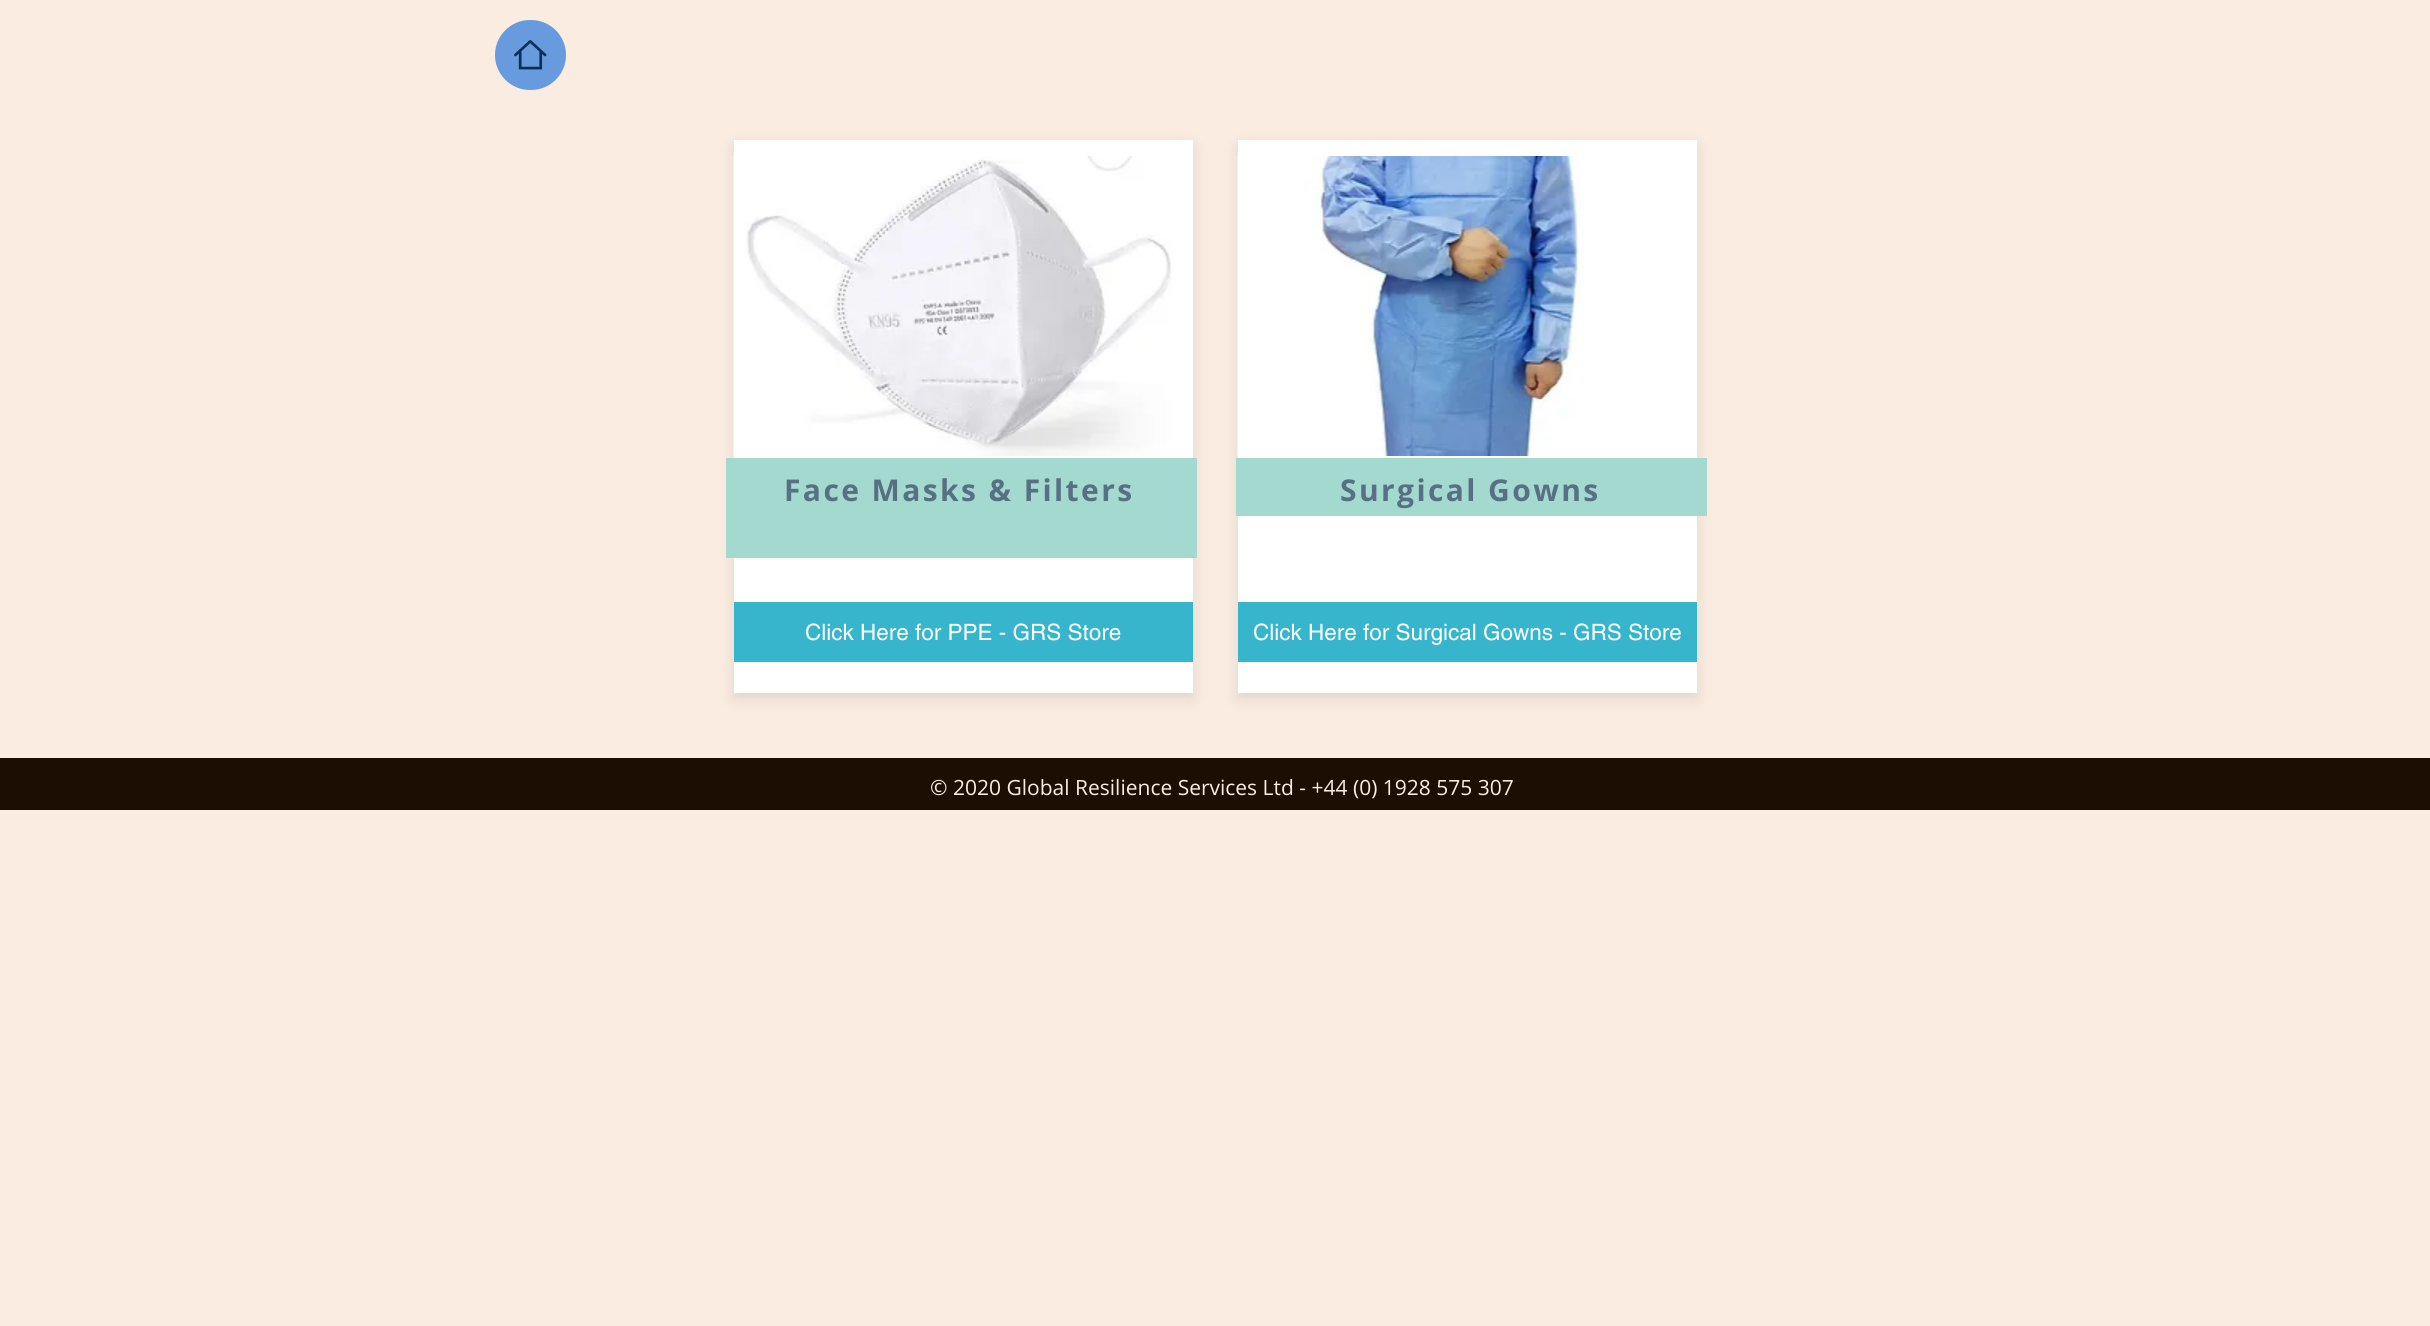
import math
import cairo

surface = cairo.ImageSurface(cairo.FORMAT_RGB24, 2430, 1326)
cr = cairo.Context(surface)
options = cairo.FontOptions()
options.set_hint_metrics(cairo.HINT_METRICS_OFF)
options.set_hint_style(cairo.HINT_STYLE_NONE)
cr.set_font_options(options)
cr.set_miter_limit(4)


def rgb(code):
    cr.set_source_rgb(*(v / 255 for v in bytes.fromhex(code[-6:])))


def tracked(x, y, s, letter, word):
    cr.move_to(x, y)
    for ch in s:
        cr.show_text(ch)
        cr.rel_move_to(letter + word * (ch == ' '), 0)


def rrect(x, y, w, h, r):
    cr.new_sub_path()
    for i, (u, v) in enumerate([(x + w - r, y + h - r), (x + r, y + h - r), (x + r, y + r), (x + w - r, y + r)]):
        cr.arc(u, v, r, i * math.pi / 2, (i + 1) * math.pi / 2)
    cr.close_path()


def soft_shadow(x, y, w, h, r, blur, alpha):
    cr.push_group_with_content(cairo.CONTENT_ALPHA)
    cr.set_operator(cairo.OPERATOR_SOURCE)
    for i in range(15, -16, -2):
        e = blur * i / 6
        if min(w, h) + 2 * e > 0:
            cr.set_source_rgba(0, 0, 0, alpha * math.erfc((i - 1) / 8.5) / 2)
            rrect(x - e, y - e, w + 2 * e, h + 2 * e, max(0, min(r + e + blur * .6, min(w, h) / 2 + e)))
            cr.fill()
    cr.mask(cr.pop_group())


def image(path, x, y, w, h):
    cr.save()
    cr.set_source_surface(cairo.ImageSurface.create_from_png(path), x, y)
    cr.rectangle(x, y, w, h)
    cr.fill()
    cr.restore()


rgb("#faece1")
cr.paint()
rgb("#689ade")
rrect(495, 20, 71, 70, 35)
cr.fill()
image("img/1.png", 514, 40, 33, 30)
rgb("#000000")
soft_shadow(734, 146, 459, 553, 0, 7.5, 0.1)
rgb("#ffffff")
cr.rectangle(734, 140, 459, 553)
cr.fill()
rgb("#a3d9cf")
cr.rectangle(726, 458, 471, 100)
cr.fill()
rgb("#000000")
soft_shadow(1238, 146, 459, 553, 0, 7.5, 0.1)
rgb("#ffffff")
cr.rectangle(1238, 140, 459, 553)
cr.fill()
rgb("#a3d9cf")
cr.rectangle(1236, 458, 471, 58)
cr.fill()
image("img/2.png", 733, 156, 439, 300)
rgb("#36b5cd")
cr.rectangle(734, 602, 459, 60)
cr.fill()
image("img/3.png", 1237, 156, 349, 300)
cr.rectangle(1238, 602, 459, 60)
cr.fill()
rgb("#1d0e03")
cr.rectangle(0, 758, 2430, 52)
cr.fill()
cr.select_font_face("Open Sans", cairo.FONT_SLANT_NORMAL, cairo.FONT_WEIGHT_BOLD)
cr.set_font_size(30)
rgb("#577083")
tracked(784, 501, "Face Masks & Filters", 2.4, 0)
tracked(1340, 501, "Surgical Gowns", 2.4, 0)
cr.select_font_face("helvetica")
cr.set_font_size(22.5)
rgb("#ffffff")
cr.move_to(805, 640)
cr.show_text("Click Here for PPE - GRS Store")
cr.move_to(1253, 640)
cr.show_text("Click Here for Surgical Gowns - GRS Store")
cr.select_font_face("Open Sans")
cr.set_font_size(21)
rgb("#faece1")
cr.move_to(930, 795)
cr.show_text("© 2020 Global Resilience Services Ltd - +44 (0) 1928 575 307")
surface.write_to_png("page.png")
